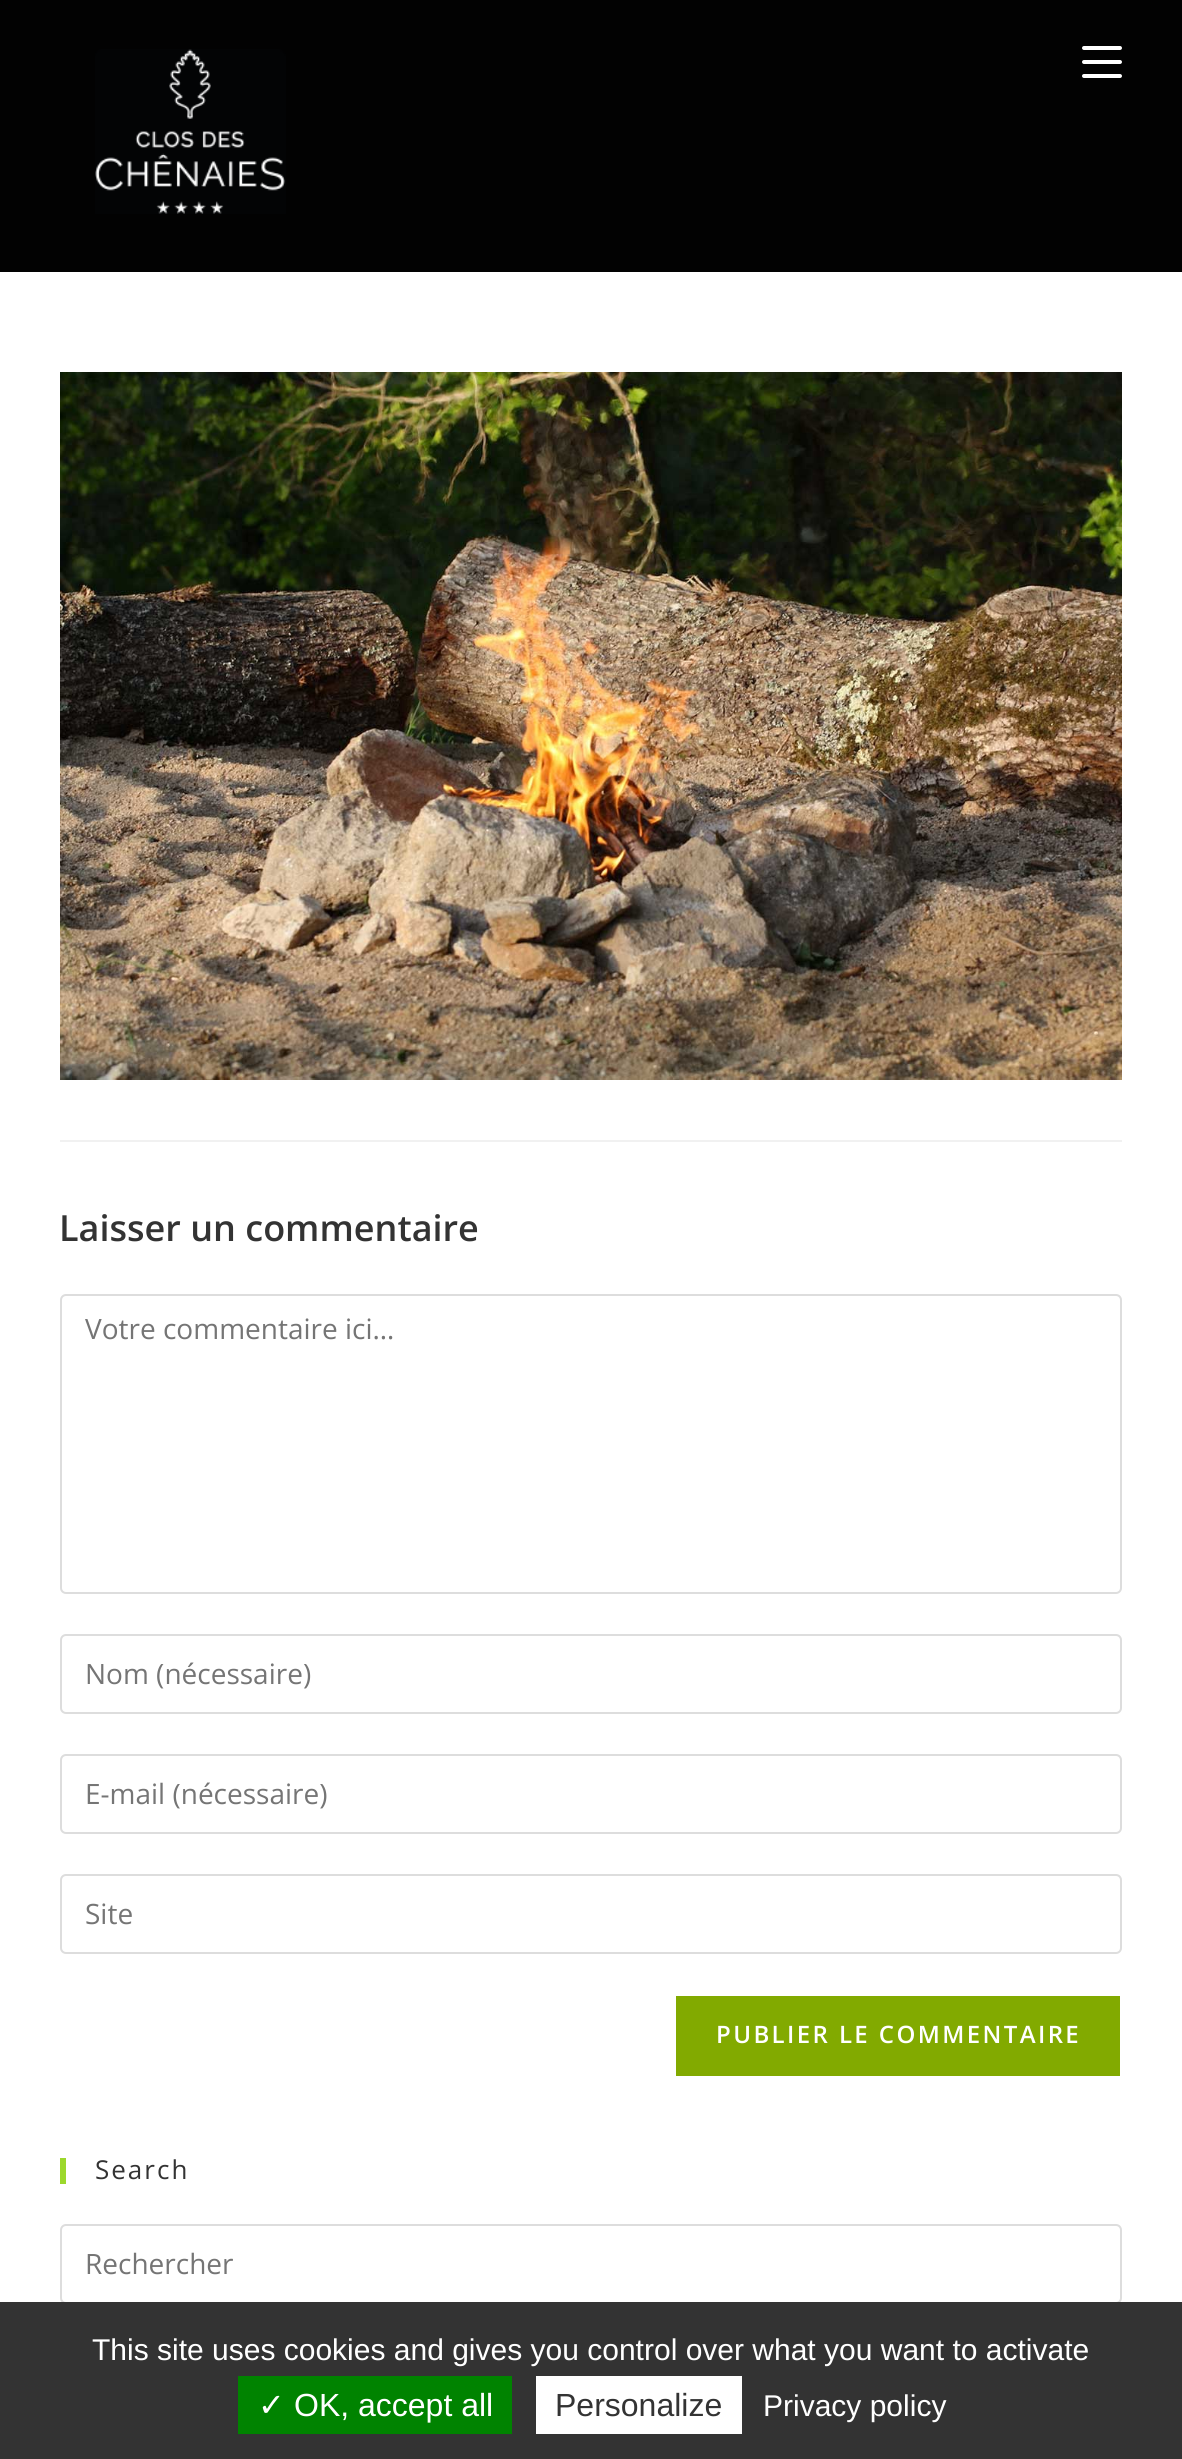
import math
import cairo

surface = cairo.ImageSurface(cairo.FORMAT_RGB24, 1182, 2459)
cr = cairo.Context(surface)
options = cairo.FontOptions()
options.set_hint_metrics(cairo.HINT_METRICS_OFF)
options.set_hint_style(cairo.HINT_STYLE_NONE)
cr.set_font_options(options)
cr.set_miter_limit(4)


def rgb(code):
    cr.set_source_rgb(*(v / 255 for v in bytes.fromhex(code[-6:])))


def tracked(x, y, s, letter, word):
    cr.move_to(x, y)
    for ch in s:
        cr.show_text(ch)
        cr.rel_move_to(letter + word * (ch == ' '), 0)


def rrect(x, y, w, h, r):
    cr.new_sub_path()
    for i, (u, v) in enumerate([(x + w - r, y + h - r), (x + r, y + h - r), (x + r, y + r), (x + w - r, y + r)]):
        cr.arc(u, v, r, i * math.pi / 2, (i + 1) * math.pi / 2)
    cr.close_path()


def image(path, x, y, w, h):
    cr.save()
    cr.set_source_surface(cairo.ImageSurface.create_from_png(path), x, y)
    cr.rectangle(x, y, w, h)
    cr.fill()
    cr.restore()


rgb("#ffffff")
cr.paint()
rgb("#020202")
cr.rectangle(0, 0, 1182, 272)
cr.fill()
image("img/1.png", 95, 49, 191, 165)
rgb("#ffffff")
rrect(1082, 60, 40, 4, 2)
cr.fill()
rrect(1082, 46, 40, 4, 2)
cr.fill()
rrect(1082, 74, 40, 4, 2)
cr.fill()
image("img/2.png", 60, 372, 1062, 708)
rgb("#f1f1f1")
cr.rectangle(60, 1140, 1062, 2)
cr.fill()
rrect(61, 1295, 1060, 298, 5)
rgb("#dddddd")
cr.stroke()
rrect(61, 1635, 1060, 78, 5)
cr.stroke()
rrect(61, 1755, 1060, 78, 5)
cr.stroke()
rrect(61, 1875, 1060, 78, 5)
cr.stroke()
rgb("#82aa00")
cr.rectangle(676, 1996, 444, 80)
cr.fill()
rgb("#9cd82c")
cr.rectangle(60, 2158, 6, 26)
cr.fill()
rrect(61, 2225, 1060, 78, 5)
rgb("#dddddd")
cr.stroke()
for x, y, w, h, color in [
    (0, 2302, 1182, 157, "#333333"),
    (238, 2376, 274, 58, "#008300"),
    (536, 2376, 206, 58, "#ffffff"),
]:
    rgb(color)
    cr.rectangle(x, y, w, h)
    cr.fill()
cr.select_font_face("Open Sans SemiBold")
cr.set_font_size(36)
rgb("#333333")
cr.move_to(59, 1241)
cr.show_text("Laisser un commentaire")
cr.select_font_face("Open Sans")
cr.set_font_size(28)
rgb("#757575")
for x, y, s in [
    (85, 1339, "Votre commentaire ici…"),
    (85, 1684, "Nom (nécessaire)"),
    (85, 1804, "E-mail (nécessaire)"),
    (85, 1924, "Site"),
]:
    cr.move_to(x, y)
    cr.show_text(s)
cr.select_font_face("Open Sans SemiBold")
cr.set_font_size(24)
rgb("#ffffff")
tracked(716, 2043, "PUBLIER LE COMMENTAIRE", 2.4, 0)
cr.select_font_face("Open Sans")
cr.set_font_size(26)
rgb("#333333")
tracked(95, 2179, "Search", 2, 0)
cr.set_font_size(28)
rgb("#757575")
cr.move_to(85, 2274)
cr.show_text("Rechercher")
cr.select_font_face("Liberation Sans")
cr.set_font_size(30)
rgb("#ffffff")
cr.move_to(92, 2360)
cr.show_text("This site uses cookies and gives you control over what you want to activate")
cr.select_font_face("DejaVu Sans")
cr.set_font_size(32)
cr.move_to(258, 2416)
cr.show_text("✓")
cr.select_font_face("Liberation Sans")
cr.move_to(294, 2416)
cr.show_text("OK, accept all")
rgb("#333333")
cr.move_to(555, 2416)
cr.show_text("Personalize")
cr.set_font_size(30)
rgb("#ffffff")
cr.move_to(763, 2416)
cr.show_text("Privacy policy")
surface.write_to_png("page.png")
